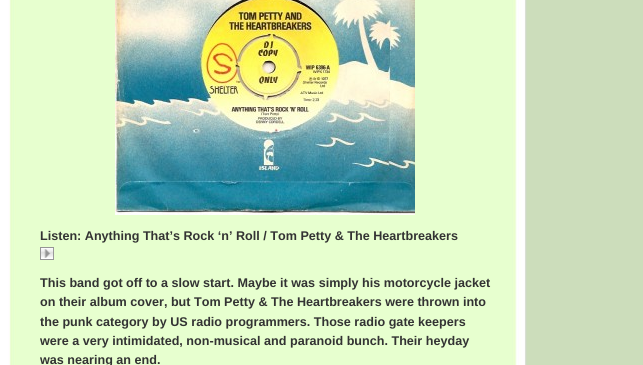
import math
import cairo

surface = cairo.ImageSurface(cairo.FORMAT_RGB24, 643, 365)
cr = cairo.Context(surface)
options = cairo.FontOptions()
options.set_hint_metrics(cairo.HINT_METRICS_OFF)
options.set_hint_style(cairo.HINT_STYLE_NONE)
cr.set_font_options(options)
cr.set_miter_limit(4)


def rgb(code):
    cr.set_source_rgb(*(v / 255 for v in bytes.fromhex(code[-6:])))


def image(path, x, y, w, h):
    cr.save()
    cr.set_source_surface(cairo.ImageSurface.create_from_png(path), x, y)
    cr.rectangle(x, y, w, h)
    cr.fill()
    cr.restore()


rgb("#ffffff")
cr.paint()
image("img/1.png", 0, 0, 643, 365)
image("img/2.png", 115, 0, 300, 215)
image("img/3.png", 40, 247, 14, 13)
cr.select_font_face("Liberation Sans", cairo.FONT_SLANT_NORMAL, cairo.FONT_WEIGHT_BOLD)
cr.set_font_size(12.6)
rgb("#333333")
for x, y, s in [
    (40, 240, "Listen: Anything That’s Rock ‘n’ Roll / Tom Petty & The Heartbreakers"),
    (40, 287, "This band got off to a slow start. Maybe it was simply his motorcycle jacket"),
    (40, 306, "on their album cover, but Tom Petty & The Heartbreakers were thrown into"),
    (40, 326, "the punk category by US radio programmers. Those radio gate keepers"),
    (40, 345, "were a very intimidated, non-musical and paranoid bunch. Their heyday"),
    (40, 364, "was nearing an end."),
]:
    cr.move_to(x, y)
    cr.show_text(s)
surface.write_to_png("page.png")
